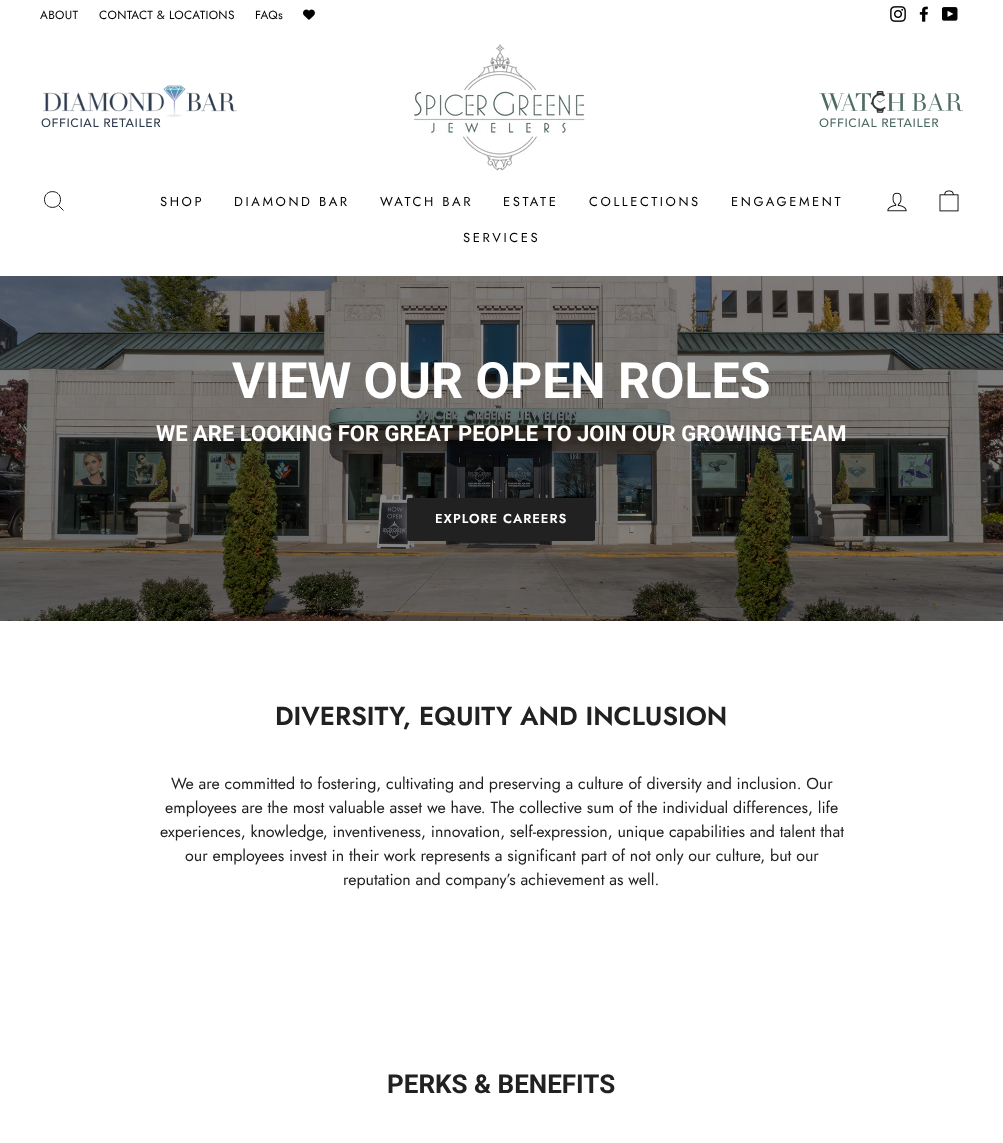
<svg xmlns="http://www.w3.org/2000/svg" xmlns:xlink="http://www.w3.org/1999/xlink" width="1003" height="1143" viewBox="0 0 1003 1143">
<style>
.cls-1{font:11.9px Jost;letter-spacing:0.3px;fill:#000000}
.cls-2{font:13px Jost;letter-spacing:2.6px;fill:#000000}
.cls-3{font:bold 50px Roboto;fill:#ffffff}
.cls-4{font:bold 22px Roboto;fill:#ffffff}
.cls-5{font:600 13px Jost;letter-spacing:1px;fill:#ffffff}
.cls-6{font:600 26px Jost;fill:#212121}
.cls-7{font:16px Jost;fill:#212121}
.cls-8{font:bold 26px Roboto;fill:#212121}
</style>
<rect width="100%" height="100%" fill="#ffffff"/>
<image xlink:href="image0.png" x="303" y="9" width="12" height="11"/>
<image xlink:href="image1.png" x="890" y="6" width="16" height="16"/>
<image xlink:href="image2.png" x="919" y="6" width="9" height="16"/>
<image xlink:href="image3.png" x="942" y="7" width="16" height="14"/>
<image xlink:href="image4.png" x="41" y="85" width="196" height="42"/>
<image xlink:href="image5.png" x="414" y="44" width="172" height="127"/>
<image xlink:href="image6.png" x="819" y="91" width="144" height="36"/>
<path fill="none" stroke="#000000" stroke-width="0.9" d="M60.5 199.5C60.5 210 44.5 210 44.5 199.5C44.5 189 60.5 189 60.5 199.5ZM63.5 210.5L58.5 205.5"/>
<image xlink:href="image7.png" x="887" y="192" width="20" height="20"/>
<image xlink:href="image8.png" x="939" y="190" width="20" height="22"/>
<image xlink:href="image9.png" x="0" y="276" width="1003" height="345"/>
<rect fill="#212121" x="407" y="498" width="188" height="43" rx="2"/>
<text class="cls-1" x="40" y="19">ABOUT</text>
<text class="cls-1" x="99" y="19">CONTACT &amp; LOCATIONS</text>
<text class="cls-1" x="255" y="19">FAQs</text>
<text class="cls-2" x="160" y="206">SHOP</text>
<text class="cls-2" x="234" y="206">DIAMOND BAR</text>
<text class="cls-2" x="380" y="206">WATCH BAR</text>
<text class="cls-2" x="503" y="206">ESTATE</text>
<text class="cls-2" x="589" y="206">COLLECTIONS</text>
<text class="cls-2" x="731" y="206">ENGAGEMENT</text>
<text class="cls-2" x="463" y="242">SERVICES</text>
<text class="cls-3" x="232" y="398">VIEW OUR OPEN ROLES</text>
<text class="cls-4" x="156" y="441">WE ARE LOOKING FOR GREAT PEOPLE TO JOIN OUR GROWING TEAM</text>
<text class="cls-5" x="435" y="523">EXPLORE CAREERS</text>
<text class="cls-6" x="275" y="725">DIVERSITY, EQUITY AND INCLUSION</text>
<text class="cls-7" x="171" y="789">We are committed to fostering, cultivating and preserving a culture of diversity and inclusion. Our</text>
<text class="cls-7" x="165" y="813">employees are the most valuable asset we have. The collective sum of the individual differences, life</text>
<text class="cls-7" x="160" y="837">experiences, knowledge, inventiveness, innovation, self-expression, unique capabilities and talent that</text>
<text class="cls-7" x="185" y="861">our employees invest in their work represents a significant part of not only our culture, but our</text>
<text class="cls-7" x="343" y="885">reputation and company’s achievement as well.</text>
<text class="cls-8" x="387" y="1093">PERKS &amp; BENEFITS</text>
</svg>
